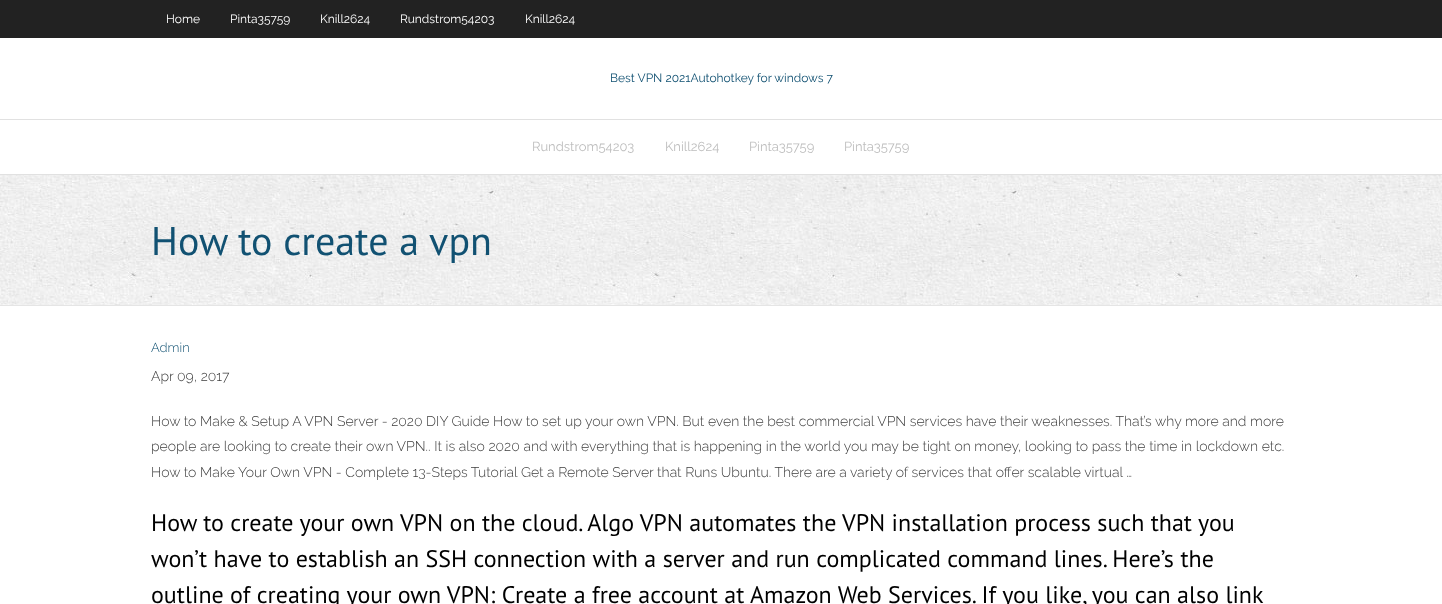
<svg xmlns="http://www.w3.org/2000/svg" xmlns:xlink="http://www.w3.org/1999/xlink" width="1442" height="604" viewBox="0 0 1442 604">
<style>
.cls-1{font:12px Raleway;fill:#ffffff}
.cls-2{font:12px Raleway;fill:#115172}
.cls-3{font:13px Raleway;fill:#bebebe}
.cls-4{font:40px PT Sans;fill:#115172}
.cls-5{font:300 13px Raleway;fill:#115172}
.cls-6{font:300 14px Raleway;fill:#3d3d3d}
.cls-7{font:24px PT Sans;fill:#000000}
</style>
<rect width="100%" height="100%" fill="#ffffff"/>
<rect fill="#222222" x="0" y="0" width="1442" height="38"/>
<rect fill="#e1e1e1" x="0" y="119" width="1442" height="1"/>
<rect fill="#e1e1e1" x="0" y="174" width="1442" height="1"/>
<image xlink:href="image0.png" x="0" y="175" width="1442" height="130"/>
<rect fill="#e5e5e5" x="0" y="305" width="1442" height="1"/>
<text class="cls-1" x="166" y="23">Home</text>
<text class="cls-1" x="230" y="23">Pinta35759</text>
<text class="cls-1" x="320" y="23">Knill2624</text>
<text class="cls-1" x="400" y="23">Rundstrom54203</text>
<text class="cls-1" x="525" y="23">Knill2624</text>
<text class="cls-2" x="610" y="82">Best VPN 2021Autohotkey for windows 7</text>
<text class="cls-3" x="532" y="151">Rundstrom54203</text>
<text class="cls-3" x="665" y="151">Knill2624</text>
<text class="cls-3" x="749" y="151">Pinta35759</text>
<text class="cls-3" x="844" y="151">Pinta35759</text>
<text class="cls-4" x="151" y="255">How to create a vpn</text>
<text class="cls-5" x="151" y="352">Admin</text>
<text class="cls-6" x="151" y="381">Apr 09, 2017</text>
<text class="cls-6"><tspan x="151" y="426">How to Make &amp; Setup A VPN Server - 2020 DIY Guide How to set up your own VPN. But even the best commercial VPN services have their weaknesses. That’s why more and more</tspan><tspan x="151" y="451">people are looking to create their own VPN.. It is also 2020 and with everything that is happening in the world you may be tight on money, looking to pass the time in lockdown etc.</tspan><tspan x="151" y="477">How to Make Your Own VPN - Complete 13-Steps Tutorial Get a Remote Server that Runs Ubuntu. There are a variety of services that offer scalable virtual …</tspan></text>
<text class="cls-7"><tspan x="151" y="531">How to create your own VPN on the cloud. Algo VPN automates the VPN installation process such that you</tspan><tspan x="151" y="567">won’t have to establish an SSH connection with a server and run complicated command lines. Here’s the</tspan><tspan x="151" y="603">outline of creating your own VPN: Create a free account at Amazon Web Services. If you like, you can also link</tspan></text>
</svg>
